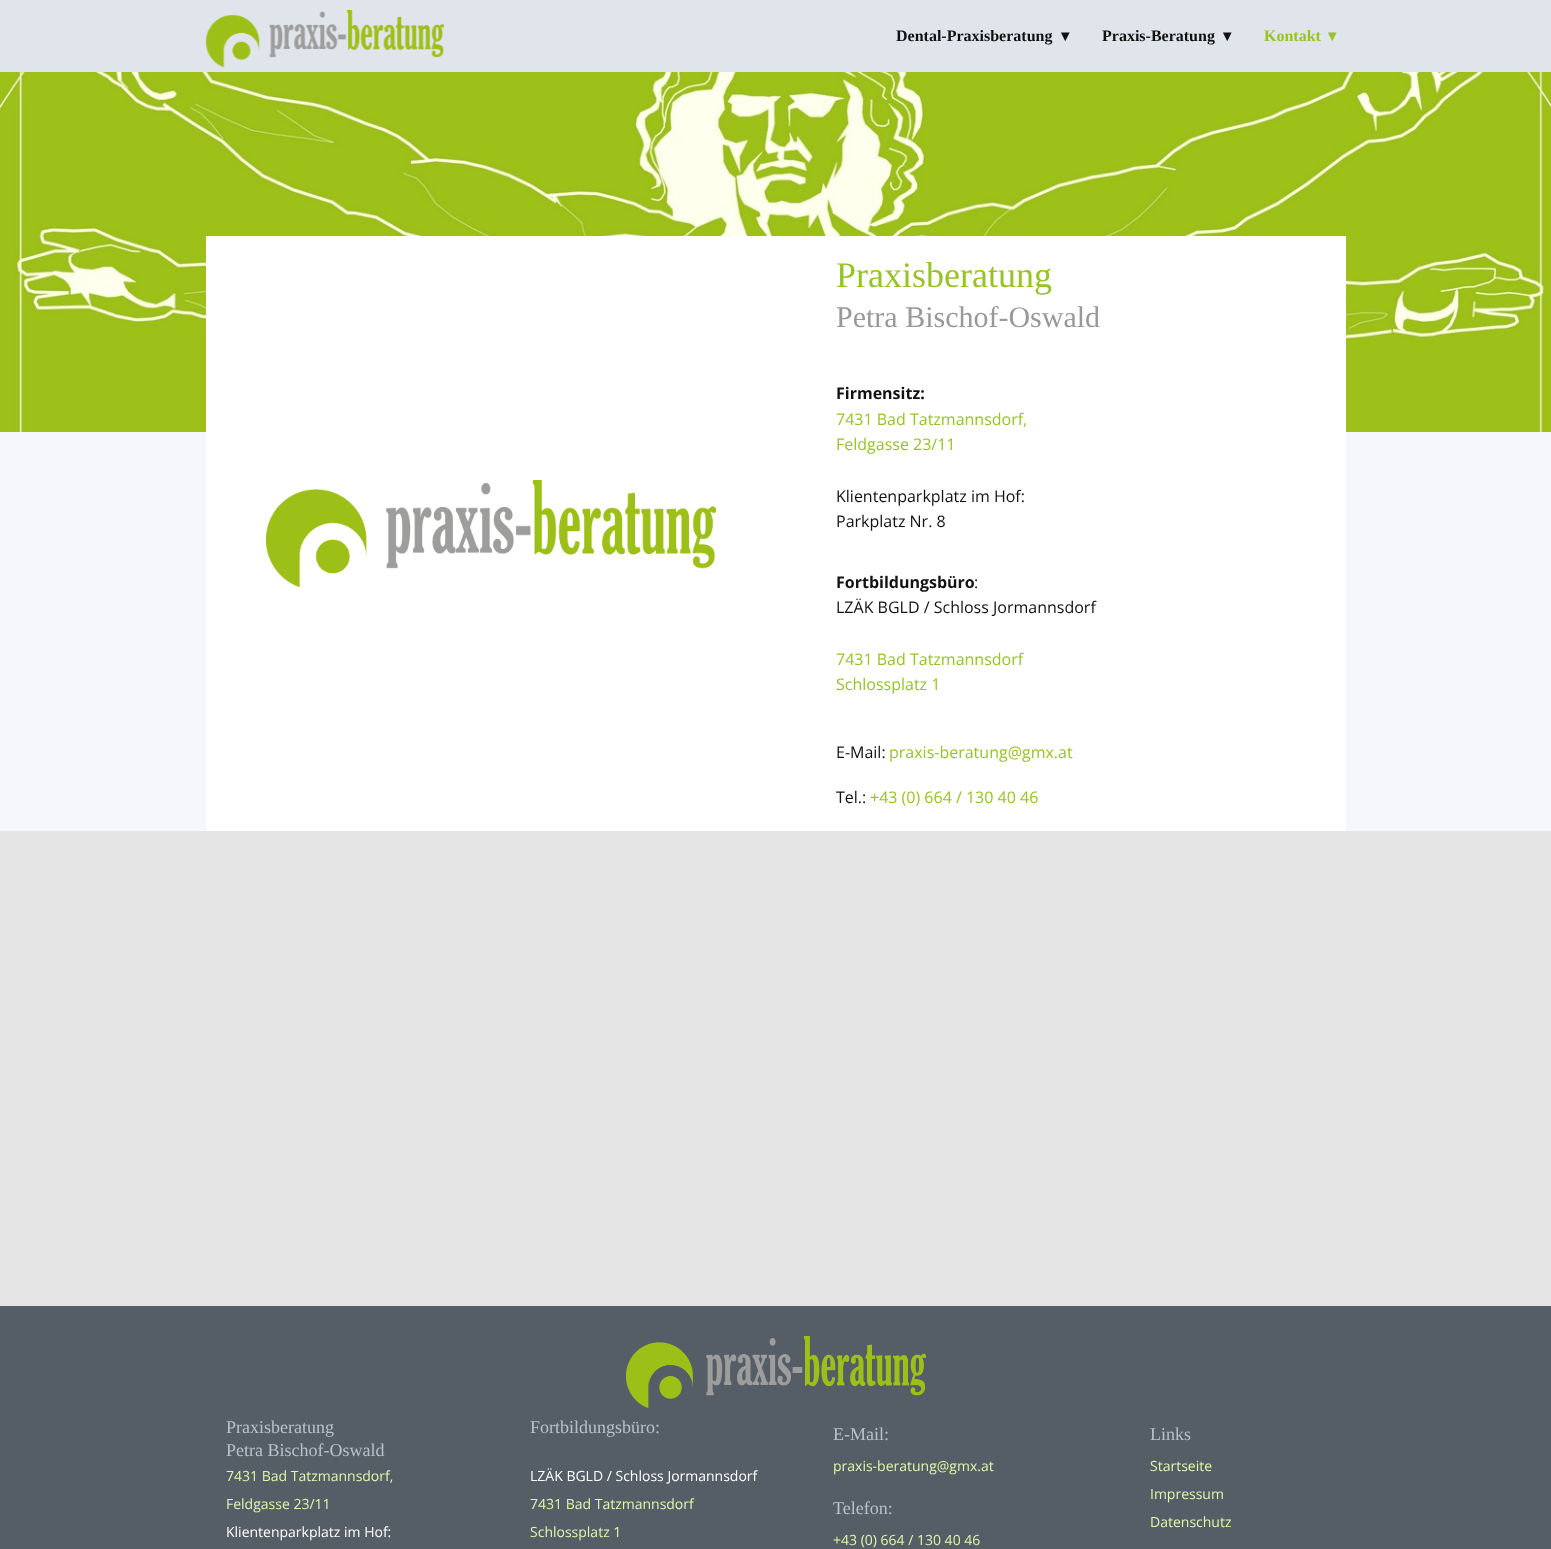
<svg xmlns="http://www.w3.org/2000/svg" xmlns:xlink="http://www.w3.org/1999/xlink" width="1551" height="1549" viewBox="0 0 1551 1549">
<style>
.cls-1{font:bold 16px Liberation Serif;fill:#111111}
.cls-2{font:bold 16px DejaVu Sans;fill:#111111}
.cls-3{font:bold 16px Liberation Serif;fill:#97c326}
.cls-4{font:bold 16px DejaVu Sans;fill:#97c326}
.cls-5{font:36px Liberation Serif;fill:#97c326}
.cls-6{font:30px Liberation Serif;fill:#999999}
.cls-7{font:bold 16px Open Sans;fill:#111111}
.cls-8{font:16px Open Sans;fill:#97c326}
.cls-9{font:16px Open Sans;fill:#111111}
.cls-10{font:18px Liberation Serif;fill:#b8c1cc}
.cls-11{font:14px Open Sans;fill:#e1f6ac}
.cls-12{font:14px Open Sans;fill:#ffffff}
</style>
<rect width="100%" height="100%" fill="#f5f7fa"/>
<rect fill="#e0e5eb" x="0" y="0" width="1551" height="72"/>
<image xlink:href="image0.png" x="205" y="10" width="239" height="58"/>
<image xlink:href="image1.png" x="0" y="72" width="1551" height="360"/>
<rect fill="#ffffff" x="206" y="236" width="1140" height="595"/>
<image xlink:href="image2.png" x="266" y="480" width="450" height="107"/>
<rect fill="#e5e5e5" x="0" y="831" width="1551" height="475"/>
<rect fill="#555d66" x="0" y="1306" width="1551" height="243"/>
<image xlink:href="image3.png" x="626" y="1336" width="300" height="72"/>
<text class="cls-1" x="896" y="41">Dental-Praxisberatung</text>
<text class="cls-2" x="1061" y="41">▾</text>
<text class="cls-1" x="1102" y="41">Praxis-Beratung</text>
<text class="cls-2" x="1223" y="41">▾</text>
<text class="cls-3" x="1264" y="41">Kontakt</text>
<text class="cls-4" x="1328" y="41">▾</text>
<text class="cls-5" x="836" y="287">Praxisberatung</text>
<text class="cls-6" x="836" y="327">Petra Bischof-Oswald</text>
<text class="cls-7" x="836" y="399">Firmensitz:</text>
<text class="cls-8"><tspan x="836" y="425">7431 Bad Tatzmannsdorf,</tspan><tspan x="836" y="450">Feldgasse 23/11</tspan></text>
<text class="cls-9"><tspan x="836" y="502">Klientenparkplatz im Hof:</tspan><tspan x="836" y="527">Parkplatz Nr. 8</tspan></text>
<text class="cls-7" x="836" y="588">Fortbildungsbüro</text>
<text class="cls-9" x="974" y="588">:</text>
<text class="cls-9" x="836" y="613">LZÄK BGLD / Schloss Jormannsdorf</text>
<text class="cls-8"><tspan x="836" y="665">7431 Bad Tatzmannsdorf</tspan><tspan x="836" y="690">Schlossplatz 1</tspan></text>
<text class="cls-9" x="836" y="758">E-Mail:</text>
<text class="cls-8" x="889" y="758">praxis-beratung@gmx.at</text>
<text class="cls-9" x="836" y="803">Tel.:</text>
<text class="cls-8" x="870" y="803">+43 (0) 664 / 130 40 46</text>
<text class="cls-10"><tspan x="226" y="1433">Praxisberatung</tspan><tspan x="226" y="1456">Petra Bischof-Oswald</tspan></text>
<text class="cls-11" x="226" y="1481">7431 Bad Tatzmannsdorf,</text>
<text class="cls-11" x="226" y="1509">Feldgasse 23/11</text>
<text class="cls-12" x="226" y="1537">Klientenparkplatz im Hof:</text>
<text class="cls-10" x="530" y="1433">Fortbildungsbüro:</text>
<text class="cls-12" x="530" y="1481">LZÄK BGLD / Schloss Jormannsdorf</text>
<text class="cls-11" x="530" y="1509">7431 Bad Tatzmannsdorf</text>
<text class="cls-11" x="530" y="1537">Schlossplatz 1</text>
<text class="cls-10" x="833" y="1440">E-Mail:</text>
<text class="cls-11" x="833" y="1471">praxis-beratung@gmx.at</text>
<text class="cls-10" x="833" y="1514">Telefon:</text>
<text class="cls-11" x="833" y="1545">+43 (0) 664 / 130 40 46</text>
<text class="cls-10" x="1150" y="1440">Links</text>
<text class="cls-11" x="1150" y="1471">Startseite</text>
<text class="cls-11" x="1150" y="1499">Impressum</text>
<text class="cls-11" x="1150" y="1527">Datenschutz</text>
</svg>
